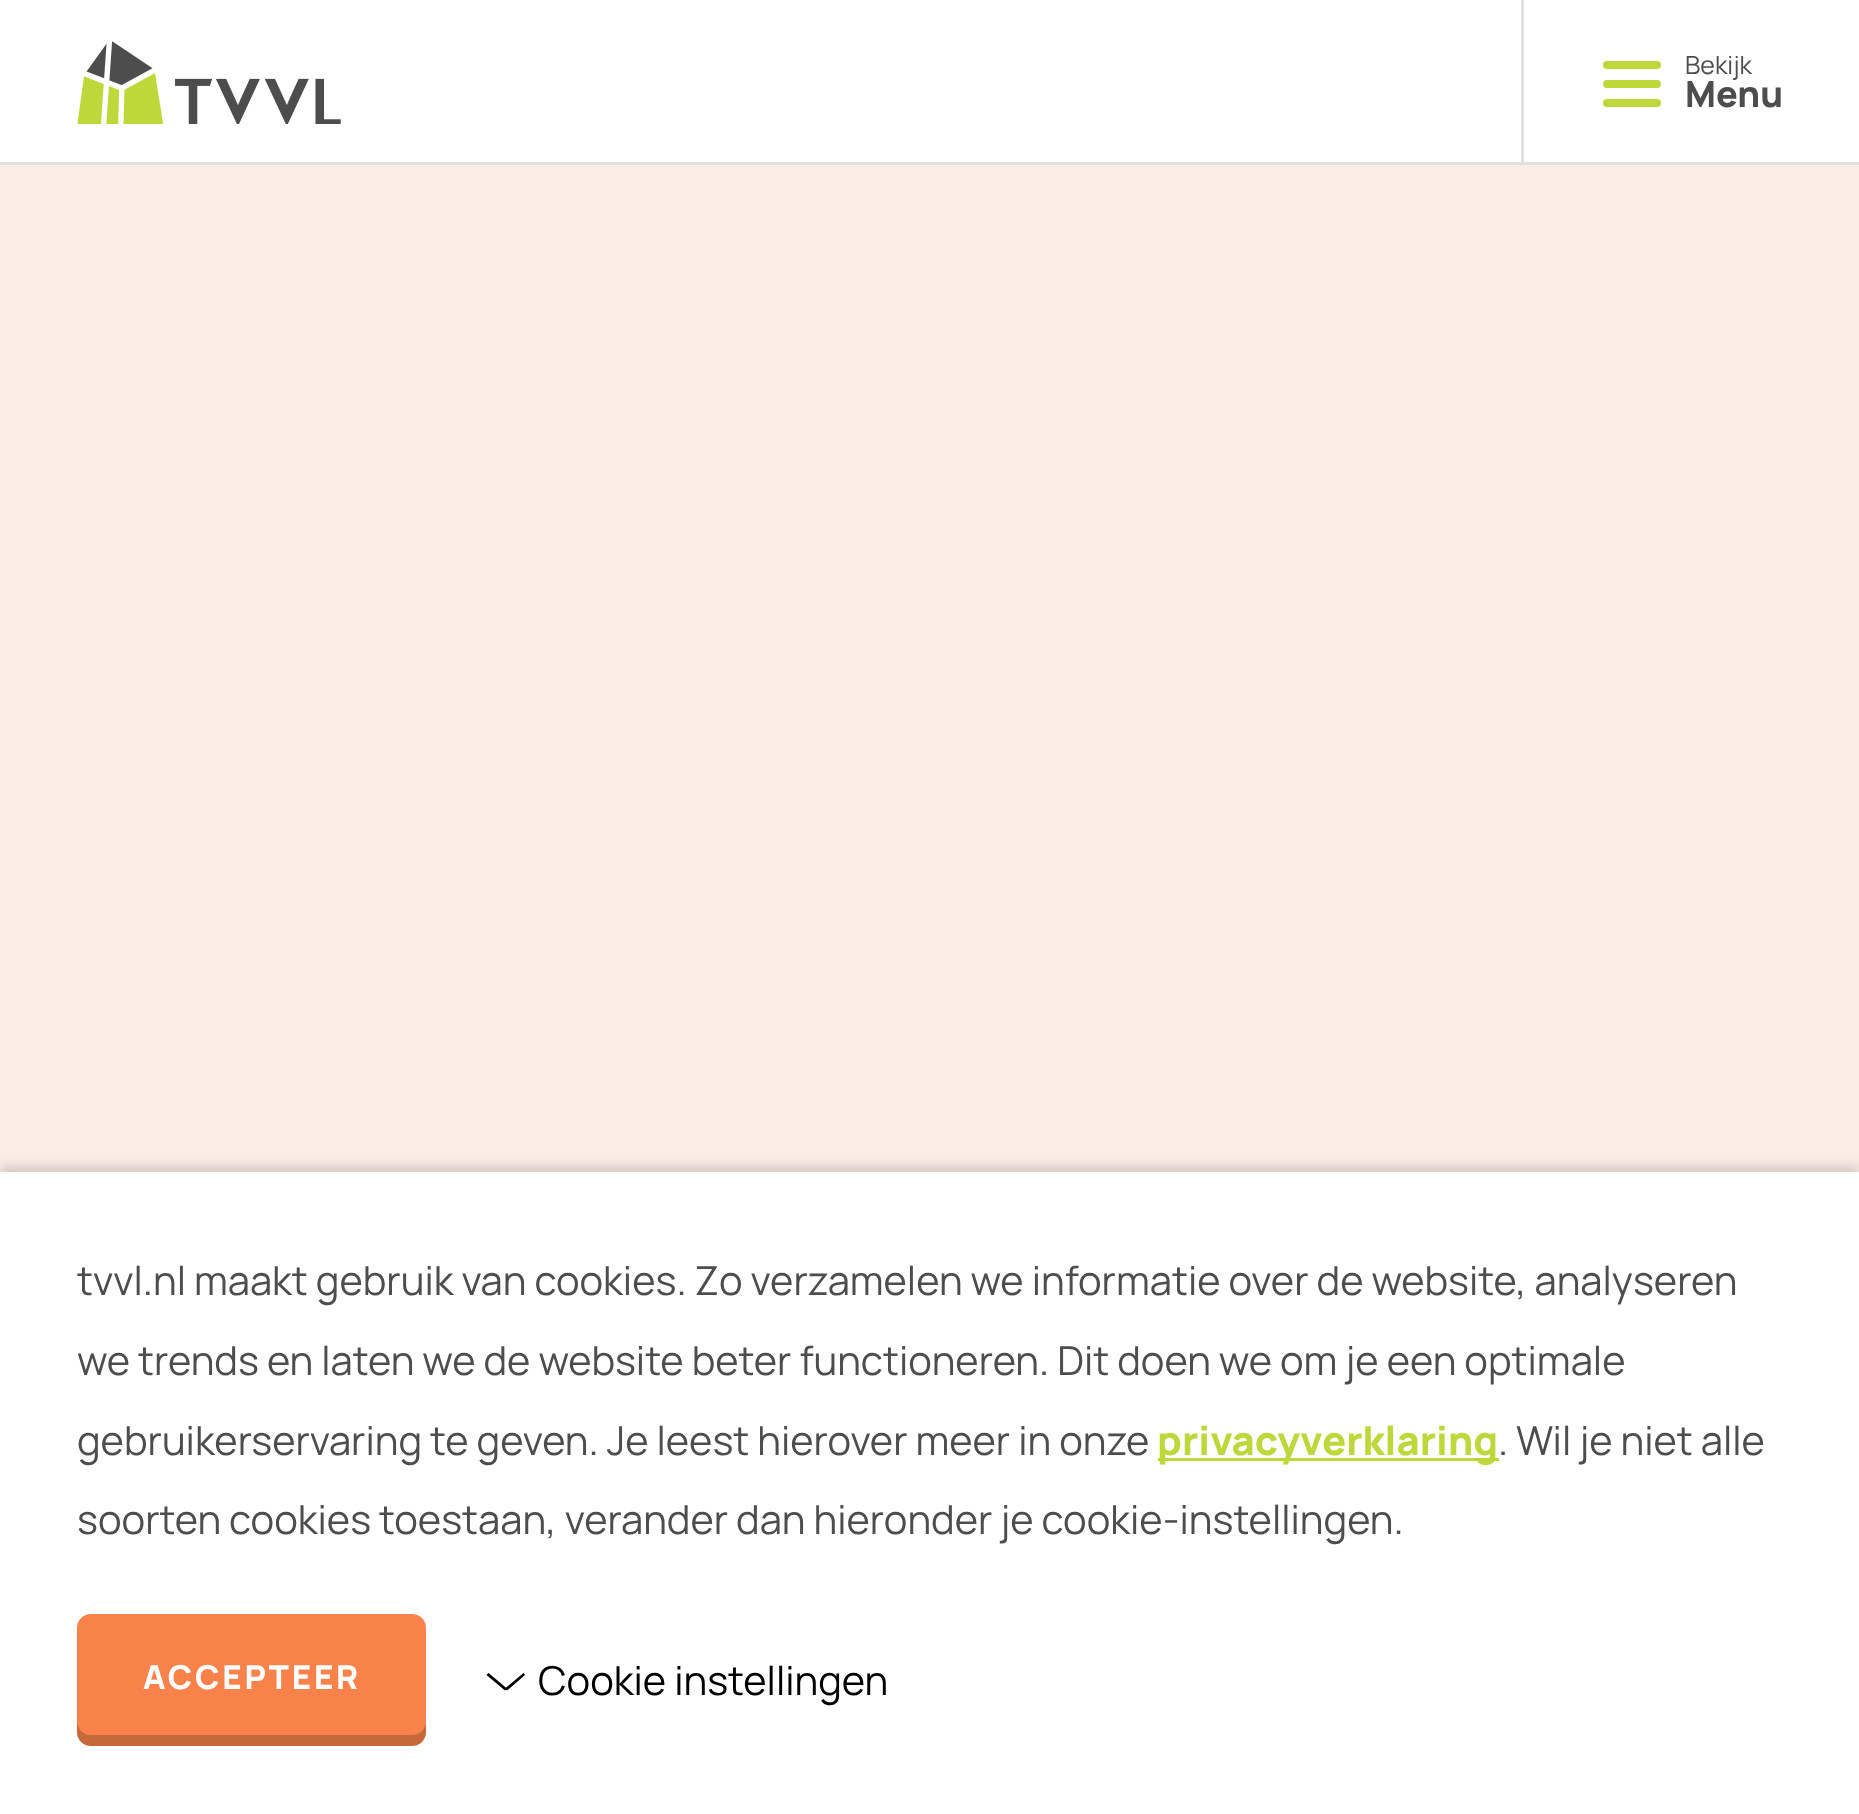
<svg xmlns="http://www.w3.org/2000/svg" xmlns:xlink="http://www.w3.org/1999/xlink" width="1859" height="1814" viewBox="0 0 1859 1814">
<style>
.cls-1{font:25px Manrope;fill:#4d4d4d}
.cls-2{font:800 36px Manrope;fill:#4d4d4d}
.cls-3{font:39.9px Manrope;fill:#4d4d4d}
.cls-4{font:800 39.9px Manrope;fill:#bed73b}
.cls-5{font:800 33px Manrope;letter-spacing:2.75px;fill:#ffffff}
.cls-6{font:39.9px Manrope;fill:#000000}
</style>
<rect width="100%" height="100%" fill="#ffffff"/>
<image xlink:href="image0.png" x="77" y="41" width="264" height="83"/>
<rect fill="#e1e1e1" x="0" y="162" width="1859" height="3"/>
<rect fill="#e1e1e1" x="1521" y="0" width="3" height="165"/>
<rect fill="#bed73b" x="1603" y="61" width="58" height="8" rx="4"/>
<rect fill="#bed73b" x="1603" y="80" width="58" height="8" rx="4"/>
<rect fill="#bed73b" x="1603" y="99" width="58" height="8" rx="4"/>
<rect fill="#fbede6" x="0" y="165" width="1859" height="1007"/>
<rect fill="#000000" fill-opacity="0.15" filter="blur(5.5px)" x="0" y="1166" width="1859" height="644"/>
<rect fill="#ffffff" x="0" y="1172" width="1859" height="642"/>
<rect fill="#bed73b" x="1158" y="1458" width="341" height="3"/>
<rect fill="#f9824a" x="77" y="1614" width="349" height="132" rx="14"/>
<path fill="#000000" fill-opacity="0.2" d="M77 1721V1732C77 1740 83 1746 91 1746H412C420 1746 426 1740 426 1732V1721C426 1729 420 1735 412 1735H91C83 1735 77 1729 77 1721Z"/>
<path fill="#000000" d="M488.5 1673L507 1688.5L505 1690.5L486.5 1675Z"/>
<path fill="#000000" d="M505 1688.5L523.5 1673L525 1675L507 1690.5Z"/>
<text class="cls-1" x="1685" y="74">Bekijk</text>
<text class="cls-2" x="1685" y="107">Menu</text>
<text class="cls-3" x="77" y="1295">tvvl.nl maakt gebruik van cookies. Zo verzamelen we informatie over de website, analyseren</text>
<text class="cls-3" x="77" y="1375">we trends en laten we de website beter functioneren. Dit doen we om je een optimale</text>
<text class="cls-3" x="77" y="1455">gebruikerservaring te geven. Je leest hierover meer in onze</text>
<text class="cls-4" x="1157" y="1455">privacyverklaring</text>
<text class="cls-3" x="1498" y="1455">. Wil je niet alle</text>
<text class="cls-3" x="77" y="1534">soorten cookies toestaan, verander dan hieronder je cookie-instellingen.</text>
<text class="cls-5" x="143" y="1689">ACCEPTEER</text>
<text class="cls-6" x="538" y="1695">Cookie instellingen</text>
</svg>
